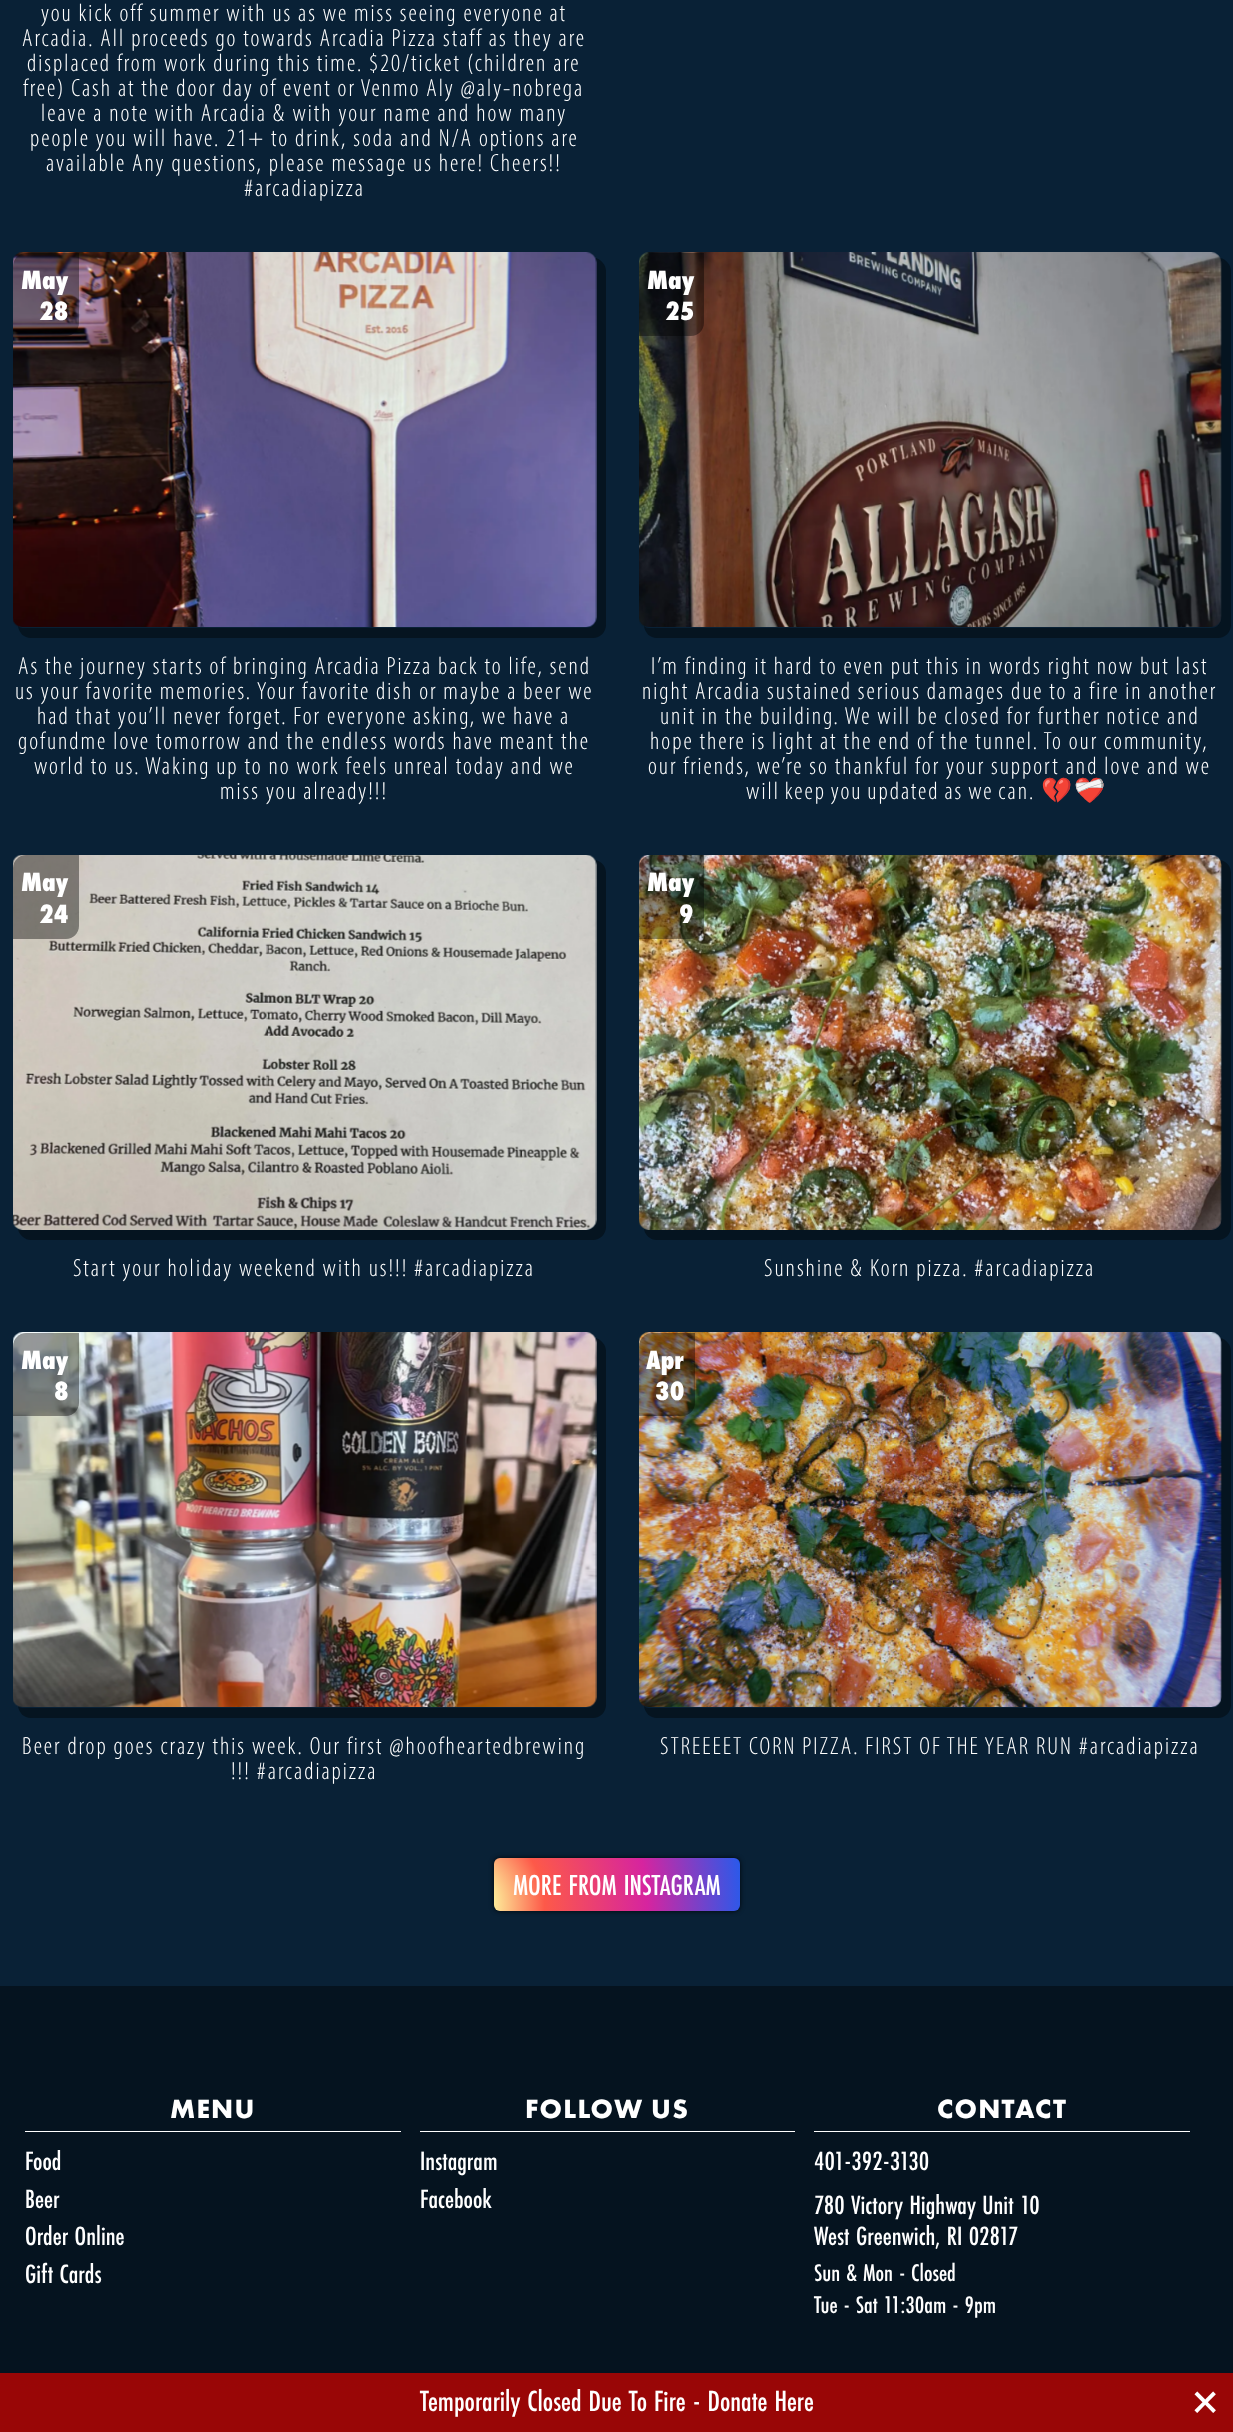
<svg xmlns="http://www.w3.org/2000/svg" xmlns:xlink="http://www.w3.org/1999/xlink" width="1233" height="2432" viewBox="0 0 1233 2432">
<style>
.cls-1{font:300 25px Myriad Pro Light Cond;letter-spacing:2px;fill:#ffffff}
.cls-2{font:800 27.5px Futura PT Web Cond;fill:#ffffff}
.cls-3{font:25px Noto Color Emoji;letter-spacing:2px;fill:#ffffff}
.cls-4{font:500 30px Futura PT Web Cond;fill:#ffffff}
.cls-5{font:bold 27.5px Futura PT;letter-spacing:1.25px;fill:#ffffff}
.cls-6{font:500 27.5px Futura PT Web Cond;fill:#ffffff}
.cls-7{font:500 25px Futura PT Web Cond;fill:#ffffff}
.cls-8{font:500 30.25px Futura PT Web Cond;fill:#ffffff}
.cls-9{font:69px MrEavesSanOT;fill:#ffffff}
</style>
<defs>
<radialGradient id="g1" gradientUnits="userSpaceOnUse" cx="459" cy="1905" r="285"><stop offset="0" stop-color="#fdf497"/><stop offset="0.11" stop-color="#fdf59e"/><stop offset="0.3" stop-color="#fd5949"/><stop offset="0.66" stop-color="#d6249f"/><stop offset="1" stop-color="#285aeb"/></radialGradient>
</defs>
<rect width="100%" height="100%" fill="#092136"/>
<path fill="#051420" d="M18 626C19 633 24 638 31 638H593C600 638 606 632 606 625V271C606 265 601 259 595 258L596 262V618C596 623 592 628 586 628H22C21 628 19 627 18 626Z"/>
<image xlink:href="image0.png" x="13" y="252" width="584" height="375"/>
<path fill="#000000" fill-opacity="0.4" d="M26 253H79V323C79 330 73 336 66 336H13V266C13 259 19 253 26 253Z"/>
<path fill="#051420" d="M644 626C645 633 650 638 657 638H1218C1225 638 1231 632 1231 625V271C1231 265 1226 259 1220 258L1221 262V618C1221 623 1217 628 1211 628H649C647 628 645 627 644 626Z"/>
<image xlink:href="image1.png" x="639" y="252" width="583" height="375"/>
<path fill="#000000" fill-opacity="0.4" d="M652 253H704V323C704 330 698 336 691 336H639V266C639 259 645 253 652 253Z"/>
<path fill="#051420" d="M18 1229C19 1235 25 1240 31 1240H593C600 1240 606 1234 606 1227V873C606 866 601 861 595 860C596 862 596 863 596 865V1220C596 1226 592 1230 586 1230H22Z"/>
<image xlink:href="image2.png" x="13" y="855" width="584" height="375"/>
<path fill="#000000" fill-opacity="0.4" d="M26 855H79V926C79 933 73 939 66 939H13V868C13 861 19 855 26 855Z"/>
<path fill="#051420" d="M644 1229C645 1235 650 1240 657 1240H1218C1225 1240 1231 1234 1231 1227V873C1231 866 1226 861 1220 860C1221 862 1221 863 1221 865V1220C1221 1226 1217 1230 1211 1230H649C647 1230 646 1230 644 1229Z"/>
<image xlink:href="image3.png" x="639" y="855" width="583" height="375"/>
<path fill="#000000" fill-opacity="0.4" d="M652 855H704V926C704 933 698 939 691 939H639V868C639 861 645 855 652 855Z"/>
<path fill="#051420" d="M18 1706C19 1713 24 1718 31 1718H593C600 1718 606 1712 606 1705V1351C606 1345 601 1339 595 1338L596 1342V1698C596 1703 592 1708 586 1708H22C21 1708 19 1707 18 1706Z"/>
<image xlink:href="image4.png" x="13" y="1332" width="584" height="375"/>
<path fill="#000000" fill-opacity="0.4" d="M26 1333H79V1403C79 1410 73 1416 66 1416H13V1346C13 1339 19 1333 26 1333Z"/>
<path fill="#051420" d="M644 1706C645 1713 650 1718 657 1718H1218C1225 1718 1231 1712 1231 1705V1351C1231 1345 1226 1339 1220 1338L1221 1342V1698C1221 1703 1217 1708 1211 1708H649C647 1708 645 1707 644 1706Z"/>
<image xlink:href="image5.png" x="639" y="1332" width="583" height="375"/>
<path fill="#000000" fill-opacity="0.4" d="M652 1333H695V1403C695 1410 689 1416 682 1416H639V1346C639 1339 645 1333 652 1333Z"/>
<rect fill="#000000" fill-opacity="0.86" filter="blur(2.5px)" x="494" y="1858" width="246" height="53" rx="6"/>
<rect fill="url(#g1)" x="494" y="1858" width="246" height="53" rx="6"/>
<rect fill="#05131f" x="0" y="1986" width="1233" height="387"/>
<rect fill="#ffffff" x="25" y="2131" width="376" height="1"/>
<rect fill="#ffffff" x="420" y="2131" width="375" height="1"/>
<rect fill="#ffffff" x="814" y="2131" width="376" height="1"/>
<rect fill="#990606" x="0" y="2373" width="1233" height="59"/>
<text class="cls-1" x="41" y="21">you kick off summer with us as we miss seeing everyone at</text>
<text class="cls-1" x="22" y="46">Arcadia. All proceeds go towards Arcadia Pizza staff as they are</text>
<text class="cls-1" x="27" y="71">displaced from work during this time. $20/ticket (children are</text>
<text class="cls-1" x="23" y="96">free) Cash at the door day of event or Venmo Aly @aly-nobrega</text>
<text class="cls-1" x="41" y="121">leave a note with Arcadia &amp; with your name and how many</text>
<text class="cls-1" x="30" y="146">people you will have. 21+ to drink, soda and N/A options are</text>
<text class="cls-1" x="46" y="171">available Any questions, please message us here! Cheers!!</text>
<text class="cls-1" x="244" y="196">#arcadiapizza</text>
<text class="cls-2" x="21" y="289">May</text>
<text class="cls-2" x="39" y="320">28</text>
<text class="cls-1" x="18" y="674">As the journey starts of bringing Arcadia Pizza back to life, send</text>
<text class="cls-1" x="15" y="699">us your favorite memories. Your favorite dish or maybe a beer we</text>
<text class="cls-1" x="37" y="724">had that you’ll never forget. For everyone asking, we have a</text>
<text class="cls-1" x="18" y="749">gofundme love tomorrow and the endless words have meant the</text>
<text class="cls-1" x="34" y="774">world to us. Waking up to no work feels unreal today and we</text>
<text class="cls-1" x="220" y="799">miss you already!!!</text>
<text class="cls-2" x="647" y="289">May</text>
<text class="cls-2" x="665" y="320">25</text>
<text class="cls-1" x="651" y="674">I’m finding it hard to even put this in words right now but last</text>
<text class="cls-1" x="642" y="699">night Arcadia sustained serious damages due to a fire in another</text>
<text class="cls-1" x="660" y="724">unit in the building. We will be closed for further notice and</text>
<text class="cls-1" x="650" y="749">hope there is light at the end of the tunnel. To our community,</text>
<text class="cls-1" x="648" y="774">our friends, we’re so thankful for your support and love and we</text>
<text class="cls-1" x="746" y="799" word-spacing="-1">will keep you updated as we can.</text>
<text class="cls-3" x="1041" y="799">💔❤️‍🩹</text>
<text class="cls-2" x="21" y="891">May</text>
<text class="cls-2" x="39" y="923">24</text>
<text class="cls-1" x="73" y="1276">Start your holiday weekend with us!!! #arcadiapizza</text>
<text class="cls-2" x="647" y="891">May</text>
<text class="cls-2" x="679" y="923">9</text>
<text class="cls-1" x="764" y="1276">Sunshine &amp; Korn pizza. #arcadiapizza</text>
<text class="cls-2" x="21" y="1369">May</text>
<text class="cls-2" x="54" y="1400">8</text>
<text class="cls-1" x="22" y="1754">Beer drop goes crazy this week. Our first @hoofheartedbrewing</text>
<text class="cls-1" x="231" y="1779">!!! #arcadiapizza</text>
<text class="cls-2" x="646" y="1369">Apr</text>
<text class="cls-2" x="655" y="1400">30</text>
<text class="cls-1" x="660" y="1754">STREEEET CORN PIZZA. FIRST OF THE YEAR RUN #arcadiapizza</text>
<text class="cls-4" x="513" y="1895">MORE FROM INSTAGRAM</text>
<text class="cls-5" x="170" y="2118">MENU</text>
<text class="cls-6"><tspan x="25" y="2170">Food</tspan><tspan x="25" y="2208">Beer</tspan><tspan x="25" y="2245">Order Online</tspan><tspan x="25" y="2283">Gift Cards</tspan></text>
<text class="cls-5" x="525" y="2118">FOLLOW US</text>
<text class="cls-6"><tspan x="420" y="2170">Instagram</tspan><tspan x="420" y="2208">Facebook</tspan></text>
<text class="cls-5" x="937" y="2118">CONTACT</text>
<text class="cls-6"><tspan x="814" y="2170">401-392-3130</tspan><tspan x="814" y="2214">780 Victory Highway Unit 10</tspan><tspan x="814" y="2245">West Greenwich, RI 02817</tspan></text>
<text class="cls-7"><tspan x="814" y="2281">Sun &amp; Mon - Closed</tspan><tspan x="814" y="2313">Tue - Sat 11:30am - 9pm</tspan></text>
<text class="cls-8" x="420" y="2411">Temporarily Closed Due To Fire - Donate Here</text>
<text class="cls-9" x="1190" y="2418">×</text>
</svg>
